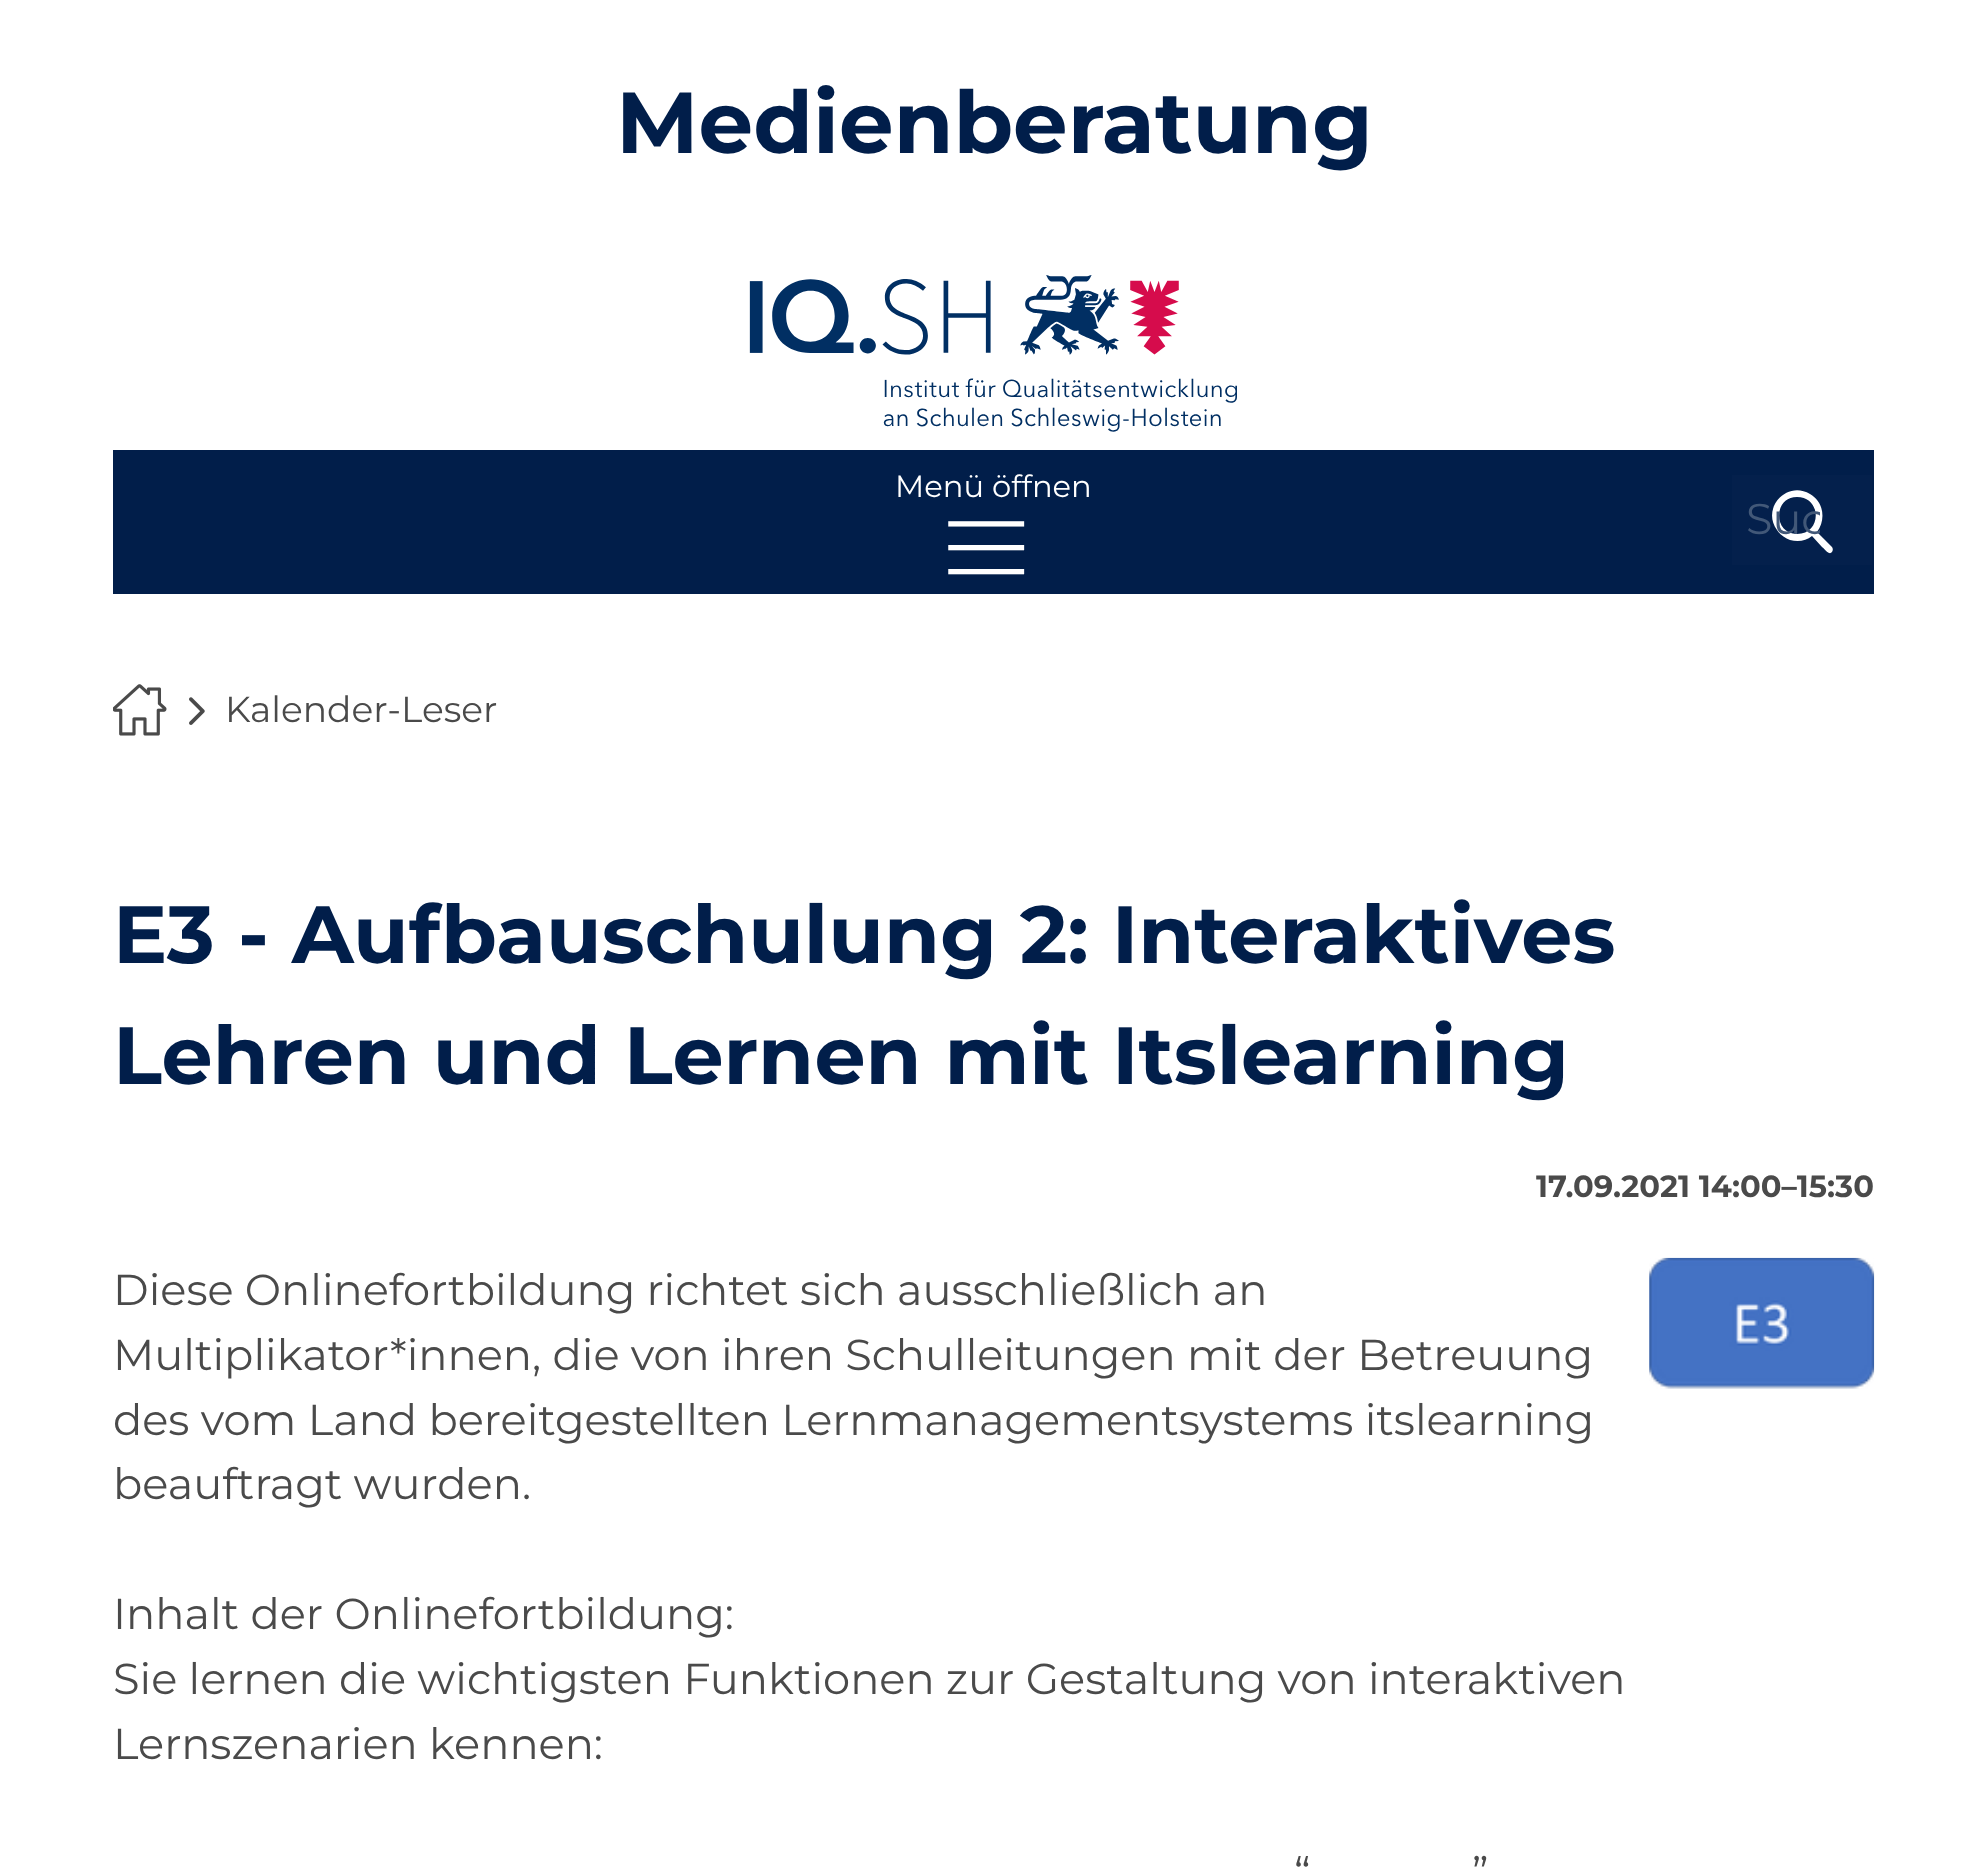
<svg xmlns="http://www.w3.org/2000/svg" xmlns:xlink="http://www.w3.org/1999/xlink" width="1985" height="1875" viewBox="0 0 1985 1875">
<style>
.cls-1{font:bold 86.5px Montserrat;fill:#011e4a}
.cls-2{font:30.6px Montserrat;fill:#ffffff}
.cls-3{font:81px Montserrat;fill:#ffffff}
.cls-4{font:43px Montserrat;fill:#425878}
.cls-5{font:36px Montserrat;fill:#4a4a4a}
.cls-6{font:bold 81px Montserrat;fill:#011e4a}
.cls-7{font:bold 30.6px Montserrat;fill:#4a4a4a}
.cls-8{font:43.2px Montserrat;fill:#4a4a4a}
</style>
<defs>
<clipPath id="clip1"><rect x="1746" y="493" width="74" height="52"/></clipPath>
</defs>
<rect width="100%" height="100%" fill="#ffffff"/>
<image xlink:href="image0.png" x="749" y="275" width="488" height="157"/>
<rect fill="#011e4a" x="113" y="450" width="1761" height="144"/>
<rect fill="#04204c" x="1732" y="475" width="140" height="90"/>
<path fill="#ffffff" d="M1832 547L1817 532C1826 520 1824 502 1810 494C1787 480 1761 508 1777 530C1780 535 1785 538 1790 540C1798 542 1806 541 1812 536L1822 547C1824 548 1826 552 1829 553C1832 554 1834 550 1832 547ZM1797 497C1822 497 1822 534 1797 534C1773 534 1773 497 1797 497Z"/>
<image xlink:href="image1.png" x="113" y="684" width="54" height="52"/>
<image xlink:href="image2.png" x="189" y="697" width="16" height="28"/>
<image xlink:href="image3.png" x="1649" y="1257" width="226" height="132"/>
<text class="cls-1" x="616" y="153">Medienberatung</text>
<text class="cls-2" x="895" y="497">Menü öffnen</text>
<text class="cls-3" x="964" y="512" transform="rotate(90 964 512)">|||</text>
<g clip-path="url(#clip1)">
<text class="cls-4" x="1746" y="534">Suc</text>
</g>
<text class="cls-5" x="225" y="722">Kalender-Leser</text>
<text class="cls-6"><tspan x="113" y="963">E3 - Aufbauschulung 2: Interaktives</tspan><tspan x="113" y="1084">Lehren und Lernen mit Itslearning</tspan></text>
<text class="cls-7" x="1536" y="1197">17.09.2021 14:00–15:30</text>
<text class="cls-8"><tspan x="113" y="1305">Diese Onlinefortbildung richtet sich ausschließlich an</tspan><tspan x="113" y="1370">Multiplikator*innen, die von ihren Schulleitungen mit der Betreuung</tspan><tspan x="113" y="1435">des vom Land bereitgestellten Lernmanagementsystems itslearning</tspan><tspan x="113" y="1499">beauftragt wurden.</tspan></text>
<text class="cls-8"><tspan x="113" y="1629">Inhalt der Onlinefortbildung:</tspan><tspan x="113" y="1694">Sie lernen die wichtigsten Funktionen zur Gestaltung von interaktiven</tspan><tspan x="113" y="1759">Lernszenarien kennen:</tspan></text>
<text class="cls-8" x="1294" y="1888">“</text>
<text class="cls-8" x="1472" y="1888">”</text>
</svg>
